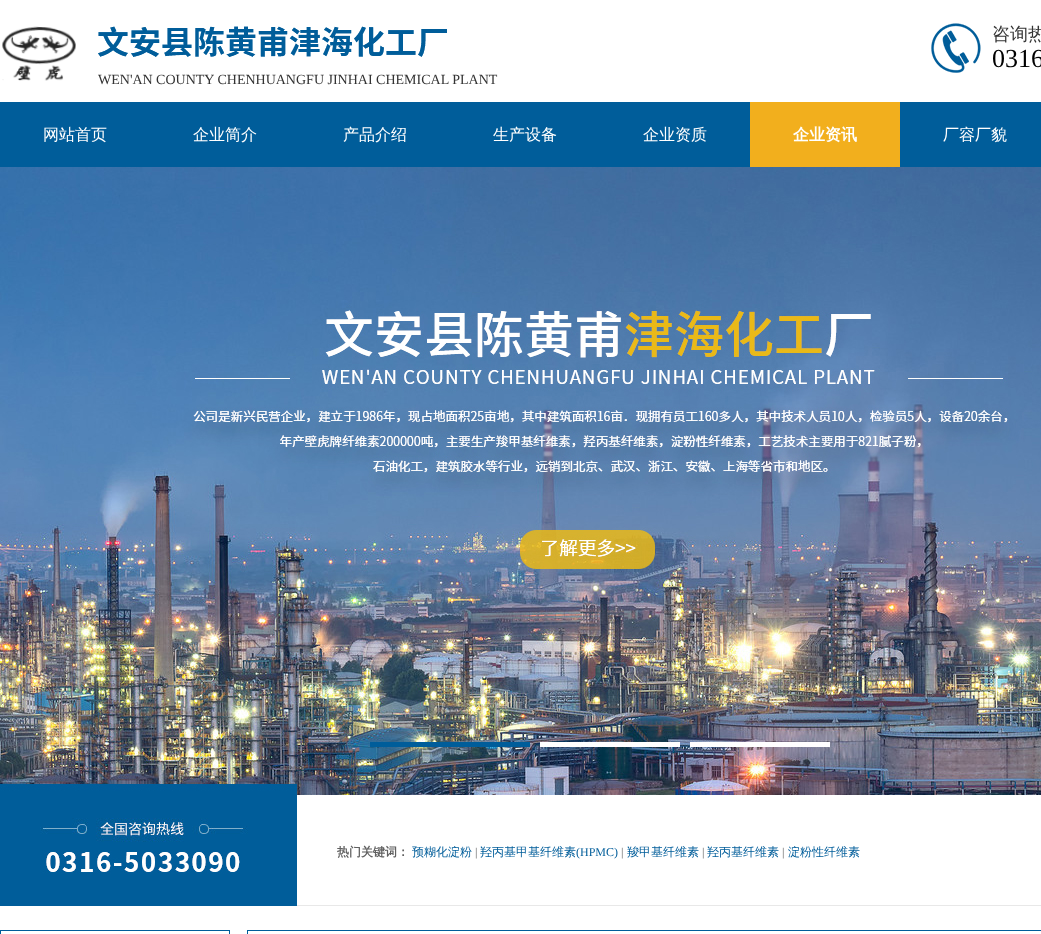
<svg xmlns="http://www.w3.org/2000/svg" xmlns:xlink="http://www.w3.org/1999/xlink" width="1041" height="934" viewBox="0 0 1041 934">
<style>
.cls-1{font:500 18px WenQuanYi Zen Hei;fill:#333333}
.cls-2{font:26px Liberation Serif;fill:#000000}
.cls-3{font:14px Liberation Serif;fill:#333333}
.cls-4{font:500 16px WenQuanYi Zen Hei;fill:#ffffff}
.cls-5{font:bold 16px WenQuanYi Zen Hei;fill:#ffffff}
.cls-6{font:bold 12px WenQuanYi Zen Hei;fill:#606060}
.cls-7{font:500 12px WenQuanYi Zen Hei;fill:#005d9a}
.cls-8{font:12px Liberation Serif;fill:#606060}
.cls-9{font:12px Liberation Serif;fill:#005d9a}
</style>
<rect width="100%" height="100%" fill="#ffffff"/>
<image xlink:href="image0.png" x="931" y="23" width="50" height="50"/>
<image xlink:href="image1.png" x="2" y="26" width="74" height="55"/>
<image xlink:href="image2.png" x="98" y="26" width="349" height="31"/>
<rect fill="#005d9a" x="0" y="102" width="1041" height="65"/>
<rect fill="#f2af1d" x="750" y="102" width="150" height="65"/>
<image xlink:href="image3.png" x="0" y="167" width="1041" height="628"/>
<rect fill="#005d9a" x="370" y="742" width="160" height="5"/>
<rect fill="#ffffff" x="540" y="742" width="140" height="5"/>
<rect fill="#ffffff" x="690" y="742" width="140" height="5"/>
<rect fill="#e8e8e8" x="297" y="905" width="744" height="1"/>
<image xlink:href="image4.png" x="0" y="795" width="297" height="111"/>
<rect fill="#005d9a" x="0" y="930" width="230" height="1"/>
<rect fill="#005d9a" x="229" y="930" width="1" height="4"/>
<rect fill="#005d9a" x="0" y="930" width="1" height="4"/>
<rect fill="none" stroke="#005d9a" x="247.5" y="930.5" width="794" height="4"/>
<text class="cls-1" x="992" y="40">咨询热</text>
<text class="cls-2" x="992" y="67">0316</text>
<text class="cls-3" x="98" y="84">WEN'AN COUNTY CHENHUANGFU JINHAI CHEMICAL PLANT</text>
<text class="cls-4" x="43" y="140">网站首页</text>
<text class="cls-4" x="193" y="140">企业简介</text>
<text class="cls-4" x="343" y="140">产品介绍</text>
<text class="cls-4" x="493" y="140">生产设备</text>
<text class="cls-4" x="643" y="140">企业资质</text>
<text class="cls-5" x="793" y="140">企业资讯</text>
<text class="cls-4" x="943" y="140">厂容厂貌</text>
<text class="cls-6" x="337" y="856">热门关键词：</text>
<text class="cls-7" x="412" y="856">预糊化淀粉</text>
<text class="cls-8" x="475" y="856">|</text>
<text class="cls-7" x="480" y="856">羟丙基甲基纤维素</text>
<text class="cls-9" x="576" y="856">(HPMC)</text>
<text class="cls-8" x="621" y="856">|</text>
<text class="cls-7" x="627" y="856">羧甲基纤维素</text>
<text class="cls-8" x="702" y="856">|</text>
<text class="cls-7" x="707" y="856">羟丙基纤维素</text>
<text class="cls-8" x="782" y="856">|</text>
<text class="cls-7" x="788" y="856">淀粉性纤维素</text>
</svg>
